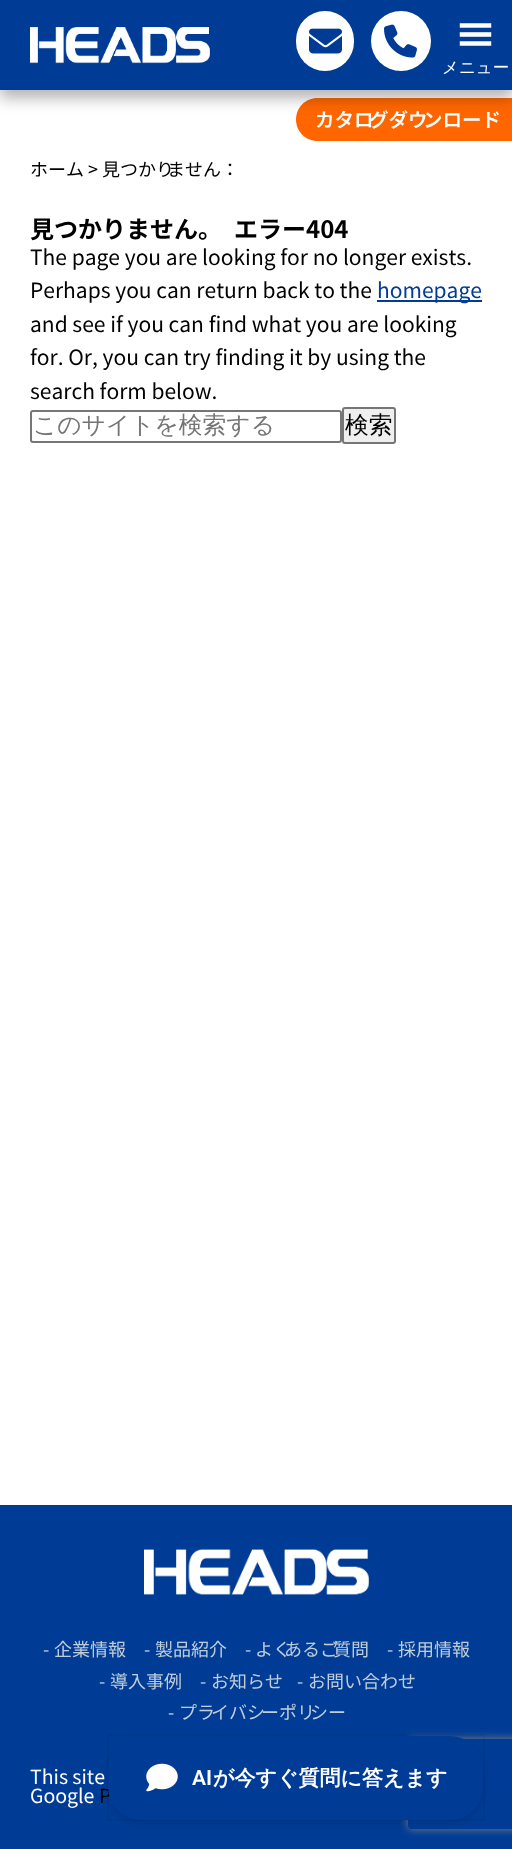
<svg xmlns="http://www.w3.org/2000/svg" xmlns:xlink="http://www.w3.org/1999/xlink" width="512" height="1849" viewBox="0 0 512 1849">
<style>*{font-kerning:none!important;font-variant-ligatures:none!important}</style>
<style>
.cls-1{font:500 16.5px WenQuanYi Zen Hei;fill:#ffffff}
.cls-2{font:600 19.5px Noto Sans JP;fill:#ffffff}
.cls-3{font:18px Noto Sans JP;fill:#000000}
.cls-4{font:bold 24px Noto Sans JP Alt;fill:#000000}
.cls-5{font:21px Noto Sans JP;fill:#000000}
.cls-6{font:21px Noto Sans JP;fill:#003c96}
.cls-7{font:500 23.75px WenQuanYi Zen Hei;fill:#757575}
.cls-8{font:500 23.75px WenQuanYi Zen Hei;fill:#000000}
.cls-9{font:18px Noto Sans JP;fill:#c0cdd9}
.cls-10{font:19.5px Noto Sans JP;fill:#ffffff}
.cls-11{font:19.5px Noto Sans JP;fill:#000000}
.cls-12{font:600 21px Roboto;fill:#ffffff}
.cls-13{font:bold 21px WenQuanYi Zen Hei;fill:#ffffff}
</style>
<defs>
<clipPath id="clip1"><path d="M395 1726H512V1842H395ZM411 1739H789C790.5 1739 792 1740.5 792 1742V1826C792 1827.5 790.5 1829 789 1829H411C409.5 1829 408 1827.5 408 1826V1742C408 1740.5 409.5 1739 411 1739Z" clip-rule="evenodd"/></clipPath>
</defs>
<rect width="100%" height="100%" fill="#ffffff"/>
<path fill="#ff6600" d="M317.5 98H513V141H317.5C305.5 141 296 131.5 296 119.5C296 107.5 305.5 98 317.5 98Z"/>
<rect fill="#000000" fill-opacity="0.3" filter="blur(7.5px)" x="0" y="8" width="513" height="90"/>
<rect fill="#003c96" x="0" y="0" width="512" height="90"/>
<rect fill="#ffffff" x="296" y="11" width="58" height="60" rx="29"/>
<image xlink:href="image0.png" x="309" y="28" width="33" height="26"/>
<circle fill="#ffffff" cx="401" cy="41" r="30"/>
<image xlink:href="image1.png" x="384" y="24" width="33" height="34"/>
<image xlink:href="image2.png" x="30" y="27" width="180" height="37"/>
<image xlink:href="image3.png" x="459" y="23" width="33" height="23"/>
<rect fill="#003c96" x="377" y="300" width="105" height="2"/>
<rect fill="none" stroke="#767676" stroke-width="2" x="31" y="411" width="310" height="31" rx="2"/>
<rect fill="#efefef" stroke="#767676" stroke-width="2" x="343" y="408" width="52" height="35" rx="2"/>
<rect fill="#003c96" x="0" y="1505" width="512" height="344"/>
<image xlink:href="image4.png" x="144" y="1549" width="225" height="46"/>
<rect fill="#000000" fill-opacity="0.1" filter="blur(4px)" x="108" y="1740" width="375" height="84" rx="33"/>
<g clip-path="url(#clip1)">
<rect fill="#808080" filter="blur(4px)" x="408" y="1739" width="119" height="90" rx="3"/>
</g>
<text class="cls-1" x="442" y="73">メニュー</text>
<text class="cls-2" x="315" y="127">カタロ</text>
<text class="cls-2" x="369" y="127">グダウ</text>
<text class="cls-2" x="423" y="127">ンロード</text>
<text class="cls-3" x="30" y="176">ホーム &gt; 見つかり</text>
<text class="cls-3" x="167" y="176">ません：</text>
<text class="cls-4" x="30" y="238">見つかりません。　エラー404</text>
<text class="cls-5"><tspan x="30" y="265">The page you are looking for no longer exists.</tspan><tspan x="30" y="298">Perhaps you can return back to the</tspan></text>
<text class="cls-6" x="377" y="298">homepage</text>
<text class="cls-5"><tspan x="30" y="332">and see if you can find what you are looking</tspan><tspan x="30" y="365">for. Or, you can try finding it by using the</tspan><tspan x="30" y="399">search form below.</tspan></text>
<text class="cls-7" x="33" y="433">このサイトを検索する</text>
<text class="cls-8" x="345" y="433">検索</text>
<text class="cls-9" x="43" y="1656">-</text>
<text class="cls-9" x="54" y="1656">企業情報</text>
<text class="cls-9" x="144" y="1656">-</text>
<text class="cls-9" x="155" y="1656">製品紹介</text>
<text class="cls-9" x="245" y="1656">-</text>
<text class="cls-9" x="255" y="1656">よく</text>
<text class="cls-9" x="284" y="1656">あるご</text>
<text class="cls-9" x="333" y="1656">質問</text>
<text class="cls-9" x="387" y="1656">-</text>
<text class="cls-9" x="398" y="1656">採用情報</text>
<text class="cls-9" x="99" y="1688">-</text>
<text class="cls-9" x="110" y="1688">導入事例</text>
<text class="cls-9" x="200" y="1688">-</text>
<text class="cls-9" x="211" y="1688">お知らせ</text>
<text class="cls-9" x="297" y="1688">-</text>
<text class="cls-9" x="308" y="1688">お問い合わせ</text>
<text class="cls-9" x="168" y="1719">-</text>
<text class="cls-9" x="179" y="1719">プラ</text>
<text class="cls-9" x="211" y="1719">イバシ</text>
<text class="cls-9" x="261" y="1719">ーポリ</text>
<text class="cls-9" x="310" y="1719">シー</text>
<text class="cls-10"><tspan x="30" y="1784">This site</tspan><tspan x="30" y="1803">Google</tspan></text>
<text class="cls-11" x="99" y="1803">P</text>
<rect fill="none" stroke="#000000" stroke-opacity="0.05" stroke-width="2" x="108" y="1735" width="376" height="85"/>
<rect fill="#003c96" x="108" y="1736" width="375" height="84" rx="33"/>
<image xlink:href="image5.png" x="146" y="1763" width="32" height="29"/>
<text class="cls-12" x="192" y="1785">AI</text>
<text class="cls-13" x="213" y="1785">が今すぐ質問に答えます</text>
</svg>
